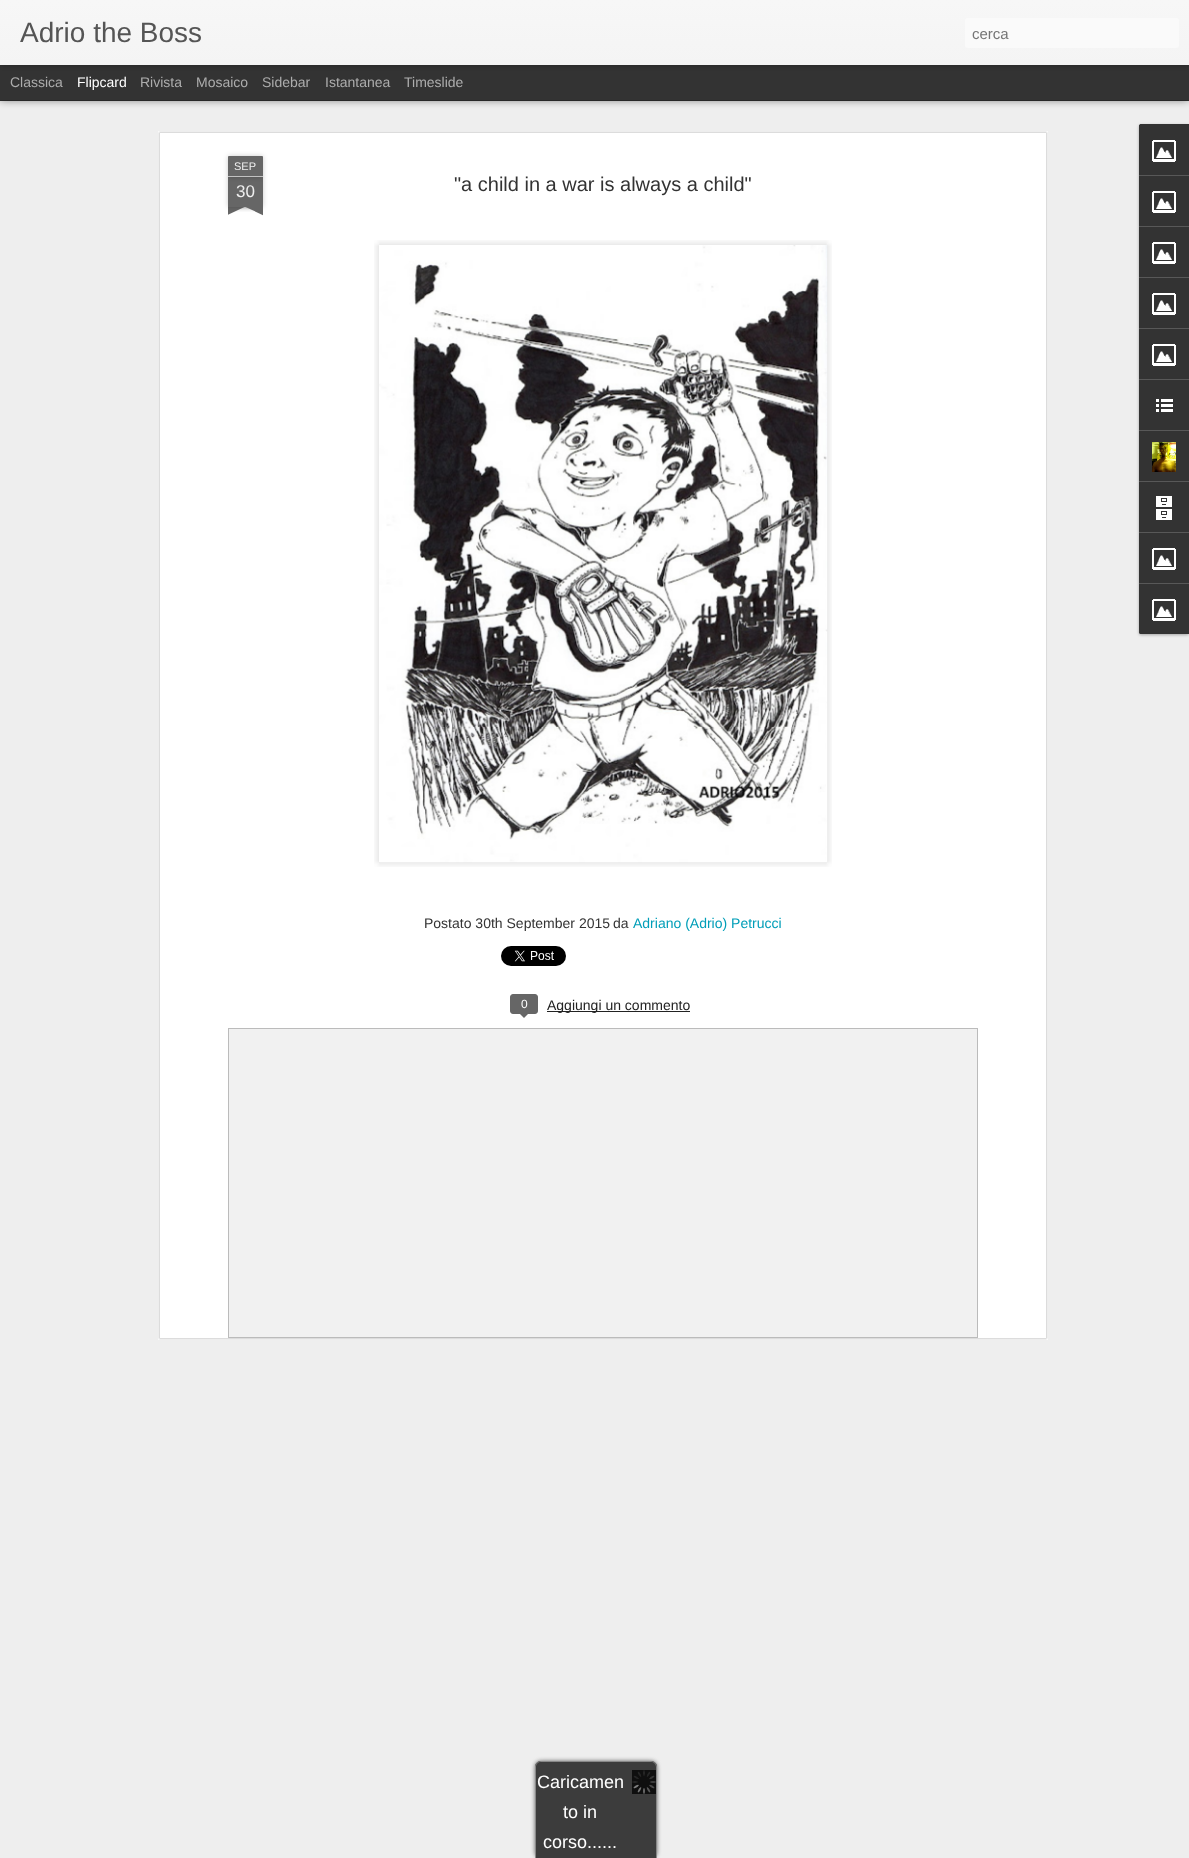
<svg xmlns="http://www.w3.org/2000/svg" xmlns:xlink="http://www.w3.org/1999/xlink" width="1189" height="1858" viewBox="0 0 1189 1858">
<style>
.cls-1{font:28px Liberation Sans;fill:#555555}
.cls-2{font:15px Liberation Sans;fill:#757575}
.cls-3{font:14px Liberation Sans;fill:#adadad}
.cls-4{font:14px Liberation Sans;fill:#ffffff}
.cls-5{font:11px Liberation Sans;fill:#eeeeee}
.cls-6{font:17px Liberation Sans;fill:#eeeeee}
.cls-7{font:20px Liberation Sans;fill:#333333}
.cls-8{font:14px Liberation Sans;fill:#333333}
.cls-9{font:14px Liberation Sans;fill:#009eb8}
.cls-10{font:12px Liberation Sans;fill:#ffffff}
.cls-11{font:14px Liberation Sans;fill:#222222}
.cls-12{font:18px Liberation Sans;fill:#ffffff}
</style>
<defs>
<linearGradient id="g1" gradientUnits="userSpaceOnUse" x1="0" y1="0" x2="0" y2="65"><stop offset="0" stop-color="#f7f7f7"/><stop offset="1" stop-color="#f4f4f4"/></linearGradient>
<clipPath id="clip1"><rect x="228" y="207" width="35" height="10"/></clipPath>
<clipPath id="clip2"><rect x="228" y="207" width="35" height="10"/></clipPath>
</defs>
<rect width="100%" height="100%" fill="#333333"/>
<rect fill="#eeeeee" x="0" y="101" width="1189" height="1757"/>
<rect fill="#000000" fill-opacity="0.5" filter="blur(4px)" x="0" y="65" width="1189" height="35"/>
<rect fill="#333333" x="0" y="65" width="1189" height="35"/>
<rect fill="#000000" fill-opacity="0.3" filter="blur(2.5px)" x="0" y="0" width="1189" height="65"/>
<rect fill="url(#g1)" x="0" y="0" width="1189" height="65"/>
<rect fill="#fafafa" x="965" y="18" width="214" height="30" rx="3"/>
<rect fill="#ffffff" x="158" y="131" width="890" height="1209"/>
<image xlink:href="image0.png" x="158" y="131" width="890" height="1209"/>
<rect fill="#000000" fill-opacity="0.2" filter="blur(2.5px)" x="228" y="177" width="35" height="30"/>
<rect fill="#666666" x="228" y="177" width="35" height="30"/>
<rect fill="#000000" fill-opacity="0.2" filter="blur(2.5px)" x="228" y="156" width="35" height="21" rx="1"/>
<path fill="#666666" d="M229 156H262C262.5 156 263 156.5 263 157V177H228V157C228 156.5 228.5 156 229 156Z"/>
<rect fill="#c2c2c2" x="228" y="176" width="35" height="1"/>
<g clip-path="url(#clip1)">
<rect fill="#000000" fill-opacity="0.2" filter="blur(2.5px)" x="219" y="197" width="50" height="10"/>
</g>
<g clip-path="url(#clip2)">
<path fill="#666666" d="M219 208L264 187L268 196L223 217Z"/>
</g>
<g clip-path="url(#clip1)">
<rect fill="#000000" fill-opacity="0.2" filter="blur(2.5px)" x="222" y="197" width="50" height="10"/>
</g>
<g clip-path="url(#clip2)">
<path fill="#666666" d="M226 187L271 208L267 217L222 196Z"/>
</g>
<image xlink:href="image1.png" x="374" y="240" width="458" height="627"/>
<image xlink:href="image2.png" x="380" y="245" width="448" height="618"/>
<image xlink:href="image3.png" x="501" y="946" width="65" height="20"/>
<rect fill="#666666" stroke="#666666" x="510.5" y="994.5" width="27" height="19" rx="2.5"/>
<path fill="#666666" d="M519 1013H529L524 1018Z"/>
<rect fill="#222222" x="547" y="1011" width="143" height="1"/>
<rect fill="#f1f1f1" stroke="#bbbbbb" x="228.5" y="1028.5" width="749" height="309"/>
<rect fill="#000000" fill-opacity="0.3" filter="blur(1.5px)" x="1139" y="125" width="50" height="510" rx="2"/>
<path fill="#333333" d="M1141 124H1189V634H1141C1140 634 1139 633 1139 632V126C1139 125 1140 124 1141 124Z"/>
<path fill="#333333" d="M1141 124H1189V175H1139V126C1139 125 1140 124 1141 124Z"/>
<image xlink:href="image4.png" x="1152" y="140" width="24" height="22"/>
<rect fill="#585858" x="1139" y="175" width="50" height="1"/>
<image xlink:href="image4.png" x="1152" y="191" width="24" height="22"/>
<rect fill="#585858" x="1139" y="226" width="50" height="1"/>
<image xlink:href="image4.png" x="1152" y="242" width="24" height="22"/>
<rect fill="#585858" x="1139" y="277" width="50" height="1"/>
<image xlink:href="image4.png" x="1152" y="293" width="24" height="22"/>
<rect fill="#585858" x="1139" y="328" width="50" height="1"/>
<image xlink:href="image4.png" x="1152" y="344" width="24" height="22"/>
<rect fill="#585858" x="1139" y="379" width="50" height="1"/>
<image xlink:href="image5.png" x="1156" y="399" width="17" height="13"/>
<rect fill="#585858" x="1139" y="430" width="50" height="1"/>
<image xlink:href="image6.png" x="1152" y="442" width="24" height="30"/>
<rect fill="#585858" x="1139" y="481" width="50" height="1"/>
<image xlink:href="image7.png" x="1156" y="496" width="16" height="24"/>
<rect fill="#585858" x="1139" y="532" width="50" height="1"/>
<image xlink:href="image4.png" x="1152" y="548" width="24" height="22"/>
<path fill="#333333" d="M1139 583H1189V634H1141C1140 634 1139 633 1139 632Z"/>
<rect fill="#585858" x="1139" y="583" width="50" height="1"/>
<image xlink:href="image4.png" x="1152" y="599" width="24" height="22"/>
<rect fill="#626262" filter="blur(2px)" x="535" y="1761" width="122" height="97" rx="6"/>
<path fill="#3c3c3c" d="M541 1761H651C654.5 1761 657 1763.5 657 1767V1858H535V1767C535 1763.5 537.5 1761 541 1761Z"/>
<path fill="#888888" fill-rule="evenodd" d="M541 1761H651C654 1761 657 1764 657 1767V1858H535V1767C535 1764 538 1761 541 1761ZM541 1762H651C654 1762 656 1764 656 1767V1858H536V1767C536 1764 538 1762 541 1762Z"/>
<image xlink:href="image8.png" x="632" y="1770" width="24" height="24"/>
<text class="cls-1" x="20" y="42">Adrio the Boss</text>
<text class="cls-2" x="972" y="39">cerca</text>
<text class="cls-3" x="10" y="87">Classica</text>
<text class="cls-4" x="77" y="87">Flipcard</text>
<text class="cls-3" x="140" y="87">Rivista</text>
<text class="cls-3" x="196" y="87">Mosaico</text>
<text class="cls-3" x="262" y="87">Sidebar</text>
<text class="cls-3" x="325" y="87">Istantanea</text>
<text class="cls-3" x="404" y="87">Timeslide</text>
<text class="cls-5" x="234" y="170">SEP</text>
<text class="cls-6" x="236" y="197">30</text>
<text class="cls-7" x="454" y="191">"a child in a war is always a child"</text>
<text class="cls-8" x="424" y="928">Postato 30th September 2015</text>
<text class="cls-8" x="613" y="928">da</text>
<text class="cls-9" x="633" y="928">Adriano (Adrio) Petrucci</text>
<text class="cls-10" x="521" y="1008">0</text>
<text class="cls-11" x="547" y="1010">Aggiungi un commento</text>
<text class="cls-12" x="537" y="1788">Caricamen</text>
<text class="cls-12" x="563" y="1818">to in</text>
<text class="cls-12" x="543" y="1848">corso......</text>
</svg>
